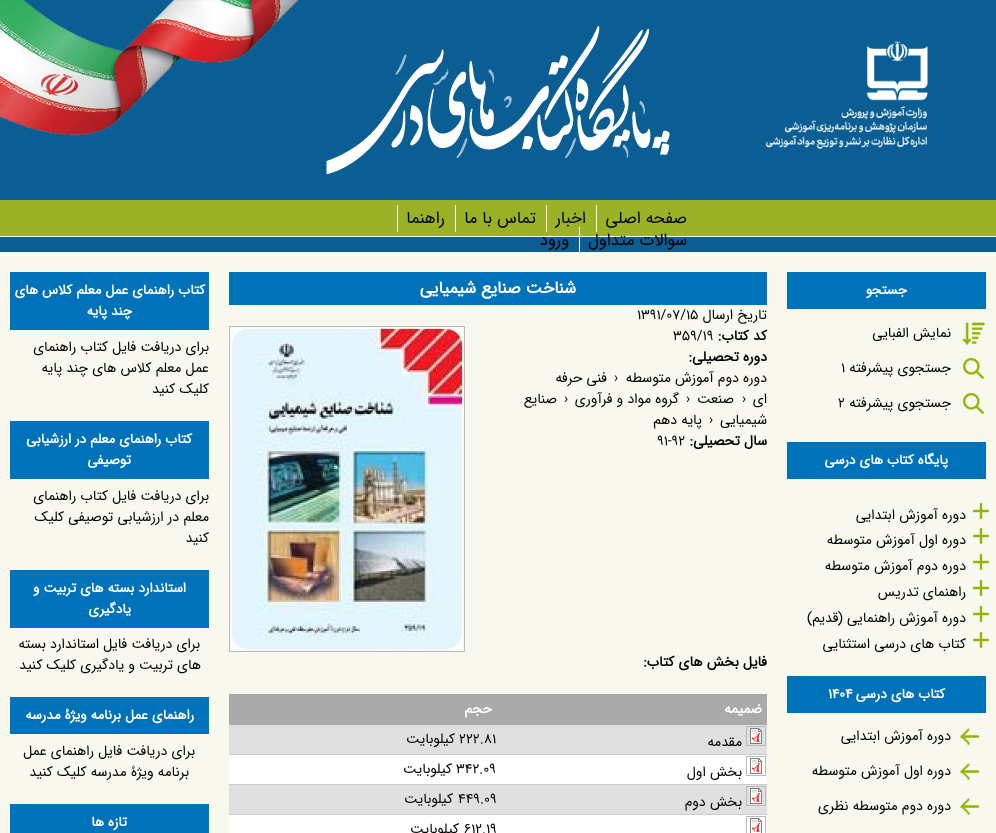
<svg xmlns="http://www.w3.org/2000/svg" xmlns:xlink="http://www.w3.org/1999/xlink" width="996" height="833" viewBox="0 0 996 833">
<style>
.cls-1{font:16.75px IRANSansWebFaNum;direction:rtl;fill:#000000}
.cls-2{font:bold 16.75px IRANSansWebFaNum;direction:rtl;fill:#ffffff}
.cls-3{font:14px IRANSansWebFaNum;direction:rtl;fill:#000000}
.cls-4{font:14px IRANSansWebFaNum;fill:#000000}
.cls-5{font:bold 14px IRANSansWebFaNum;direction:rtl;fill:#000000}
.cls-6{font:bold 14px IRANSansWebFaNum;direction:rtl;fill:#ffffff}
.cls-7{font:bold 13.6px IRANSansWebFaNum;direction:rtl;fill:#ffffff}
.cls-8{font:bold 13.6px IRANSansWebFaNum;fill:#ffffff}
</style>
<rect width="100%" height="100%" fill="#0a5e93"/>
<image xlink:href="image0.png" x="766" y="41" width="162" height="108"/>
<image xlink:href="image1.png" x="326" y="25" width="344" height="150"/>
<image xlink:href="image2.png" x="0" y="0" width="299" height="136"/>
<rect fill="#9cb226" x="0" y="200" width="996" height="36"/>
<rect fill="#ffffff" x="0" y="236" width="996" height="1"/>
<rect fill="#ffffff" x="596" y="205" width="1" height="27"/>
<rect fill="#ffffff" x="546" y="205" width="1" height="27"/>
<rect fill="#ffffff" x="455" y="205" width="1" height="27"/>
<rect fill="#ffffff" x="397" y="205" width="1" height="27"/>
<text class="cls-1" x="687" y="223">صفحه اصلی</text>
<text class="cls-1" x="586" y="223">اخبار</text>
<text class="cls-1" x="536" y="223">تماس با ما</text>
<text class="cls-1" x="445" y="223">راهنما</text>
<text class="cls-1" x="687" y="245">سوالات متداول</text>
<rect fill="#ffffff" x="579" y="227" width="1" height="27"/>
<text class="cls-1" x="569" y="245">ورود</text>
<rect fill="#f9f8ee" x="0" y="252" width="996" height="581"/>
<rect fill="#0072b9" x="229" y="272" width="538" height="33"/>
<text class="cls-2" x="576" y="293">شناخت صنایع شیمیایی</text>
<text class="cls-3" x="767" y="319">تاریخ ارسال</text>
<text class="cls-4" x="637" y="319">1391/07/15</text>
<text class="cls-5" x="767" y="340">کد کتاب:</text>
<text class="cls-4" x="673" y="340">359/19</text>
<rect fill="none" stroke="#bbbbbb" x="229.5" y="326.5" width="235" height="325"/>
<image xlink:href="image3.png" x="231" y="328" width="232" height="322"/>
<text class="cls-5" x="767" y="361">دوره تحصیلی:</text>
<text class="cls-3" x="767" y="382">دوره دوم آموزش متوسطه</text>
<text class="cls-4" x="614" y="382">›</text>
<text class="cls-3" x="607" y="382">فنی حرفه</text>
<text class="cls-3" x="767" y="403">ای</text>
<text class="cls-4" x="742" y="403">›</text>
<text class="cls-3" x="734" y="403">صنعت</text>
<text class="cls-4" x="686" y="403">›</text>
<text class="cls-3" x="679" y="403">گروه مواد و فرآوری</text>
<text class="cls-4" x="564" y="403">›</text>
<text class="cls-3" x="557" y="403">صنایع</text>
<text class="cls-3" x="767" y="424">شیمیایی</text>
<text class="cls-4" x="709" y="424">›</text>
<text class="cls-3" x="702" y="424">پایه دهم</text>
<text class="cls-5" x="767" y="445">سال تحصیلی:</text>
<text class="cls-4" x="657" y="445">91-92</text>
<text class="cls-5" x="767" y="666">فایل بخش های کتاب:</text>
<rect fill="#aaaaaa" x="229" y="694" width="538" height="31"/>
<text class="cls-6" x="762" y="713">ضمیمه</text>
<text class="cls-6" x="492" y="713">حجم</text>
<rect fill="#e0e0e0" x="229" y="725" width="538" height="29"/>
<rect fill="#cccccc" x="229" y="754" width="538" height="1"/>
<text class="cls-3" x="742" y="746">مقدمه</text>
<rect fill="none" stroke="#bbbbbb" x="746.5" y="726.5" width="19" height="19"/>
<image xlink:href="image4.png" x="750" y="728" width="12" height="16"/>
<text class="cls-4" x="459" y="743">222.81</text>
<text class="cls-3" x="455" y="743">کیلوبایت</text>
<rect fill="#ffffff" x="229" y="755" width="538" height="29"/>
<rect fill="#cccccc" x="229" y="784" width="538" height="1"/>
<text class="cls-3" x="742" y="776">بخش اول</text>
<rect fill="none" stroke="#bbbbbb" x="746.5" y="756.5" width="19" height="19"/>
<image xlink:href="image5.png" x="750" y="758" width="12" height="16"/>
<text class="cls-4" x="456" y="773">342.09</text>
<text class="cls-3" x="452" y="773">کیلوبایت</text>
<rect fill="#e0e0e0" x="229" y="785" width="538" height="29"/>
<rect fill="#cccccc" x="229" y="814" width="538" height="1"/>
<text class="cls-3" x="742" y="806">بخش دوم</text>
<rect fill="none" stroke="#bbbbbb" x="746.5" y="786.5" width="19" height="19"/>
<image xlink:href="image4.png" x="750" y="788" width="12" height="16"/>
<text class="cls-4" x="458" y="803">449.09</text>
<text class="cls-3" x="453" y="803">کیلوبایت</text>
<rect fill="#ffffff" x="229" y="815" width="538" height="18"/>
<rect fill="none" stroke="#bbbbbb" x="746.5" y="816.5" width="19" height="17"/>
<image xlink:href="image6.png" x="750" y="818" width="12" height="15"/>
<text class="cls-4" x="464" y="833">612.19</text>
<text class="cls-3" x="459" y="833">کیلوبایت</text>
<rect fill="#0072b9" x="787" y="272" width="199" height="37"/>
<text class="cls-7" x="907" y="294">جستجو</text>
<image xlink:href="image7.png" x="962" y="322" width="23" height="24"/>
<text class="cls-3" x="951" y="337">نمایش الفبایی</text>
<image xlink:href="image8.png" x="963" y="358" width="21" height="21"/>
<text class="cls-3" x="951" y="372">جستجوی پیشرفته</text>
<text class="cls-4" x="841" y="372">1</text>
<image xlink:href="image8.png" x="963" y="393" width="21" height="21"/>
<text class="cls-3" x="951" y="407">جستجوی پیشرفته</text>
<text class="cls-4" x="838" y="407">2</text>
<rect fill="#0072b9" x="787" y="442" width="199" height="37"/>
<text class="cls-7" x="948" y="464">پایگاه کتاب های درسی</text>
<image xlink:href="image9.png" x="973" y="503" width="16" height="16"/>
<text class="cls-3" x="966" y="519">دوره آموزش ابتدایی</text>
<image xlink:href="image9.png" x="973" y="528" width="16" height="16"/>
<text class="cls-3" x="966" y="544">دوره اول آموزش متوسطه</text>
<image xlink:href="image9.png" x="973" y="554" width="16" height="16"/>
<text class="cls-3" x="966" y="570">دوره دوم آموزش متوسطه</text>
<image xlink:href="image9.png" x="973" y="580" width="16" height="16"/>
<text class="cls-3" x="966" y="596">راهنمای تدریس</text>
<image xlink:href="image9.png" x="973" y="606" width="16" height="16"/>
<text class="cls-3" x="966" y="622">دوره آموزش راهنمایی (قدیم)</text>
<image xlink:href="image9.png" x="973" y="632" width="16" height="16"/>
<text class="cls-3" x="966" y="648">کتاب های درسی استثنایی</text>
<rect fill="#0072b9" x="787" y="676" width="199" height="37"/>
<text class="cls-7" x="945" y="698">کتاب های درسی</text>
<text class="cls-8" x="828" y="698">1404</text>
<image xlink:href="image10.png" x="960" y="728" width="19" height="17"/>
<text class="cls-3" x="951" y="740">دوره آموزش ابتدایی</text>
<image xlink:href="image10.png" x="960" y="763" width="19" height="17"/>
<text class="cls-3" x="951" y="775">دوره اول آموزش متوسطه</text>
<image xlink:href="image10.png" x="960" y="798" width="19" height="17"/>
<text class="cls-3" x="951" y="810">دوره دوم متوسطه نظری</text>
<rect fill="#0072b9" x="10" y="272" width="199" height="58"/>
<text class="cls-7" x="205" y="294">کتاب راهنمای عمل معلم کلاس های</text>
<text class="cls-7" x="132" y="315">چند پایه</text>
<text class="cls-3"><tspan x="209" y="351">برای دریافت فایل کتاب راهنمای</tspan><tspan x="209" y="372">عمل معلم کلاس های چند پایه</tspan><tspan x="209" y="393">کلیک کنید</tspan></text>
<rect fill="#0072b9" x="10" y="421" width="199" height="58"/>
<text class="cls-7" x="192" y="443">کتاب راهنمای معلم در ارزشیابی</text>
<text class="cls-7" x="131" y="464">توصیفی</text>
<text class="cls-3"><tspan x="209" y="500">برای دریافت فایل کتاب راهنمای</tspan><tspan x="209" y="521">معلم در ارزشیابی توصیفی کلیک</tspan><tspan x="209" y="542">کنید</tspan></text>
<rect fill="#0072b9" x="10" y="570" width="199" height="58"/>
<text class="cls-7" x="186" y="592">استاندارد بسته های تربیت و</text>
<text class="cls-7" x="131" y="613">یادگیری</text>
<text class="cls-3" x="200" y="648">برای دریافت فایل استاندارد بسته</text>
<text class="cls-3" x="201" y="669">های تربیت و یادگیری کلیک کنید</text>
<rect fill="#0072b9" x="10" y="697" width="199" height="37"/>
<text class="cls-7" x="194" y="719">راهنمای عمل برنامه ویژۀ مدرسه</text>
<text class="cls-3" x="195" y="755">برای دریافت فایل راهنمای عمل</text>
<text class="cls-3" x="189" y="776">برنامه ویژۀ مدرسه کلیک کنید</text>
<rect fill="#0072b9" x="10" y="804" width="199" height="29"/>
<text class="cls-7" x="127" y="826">تازه ها</text>
</svg>
